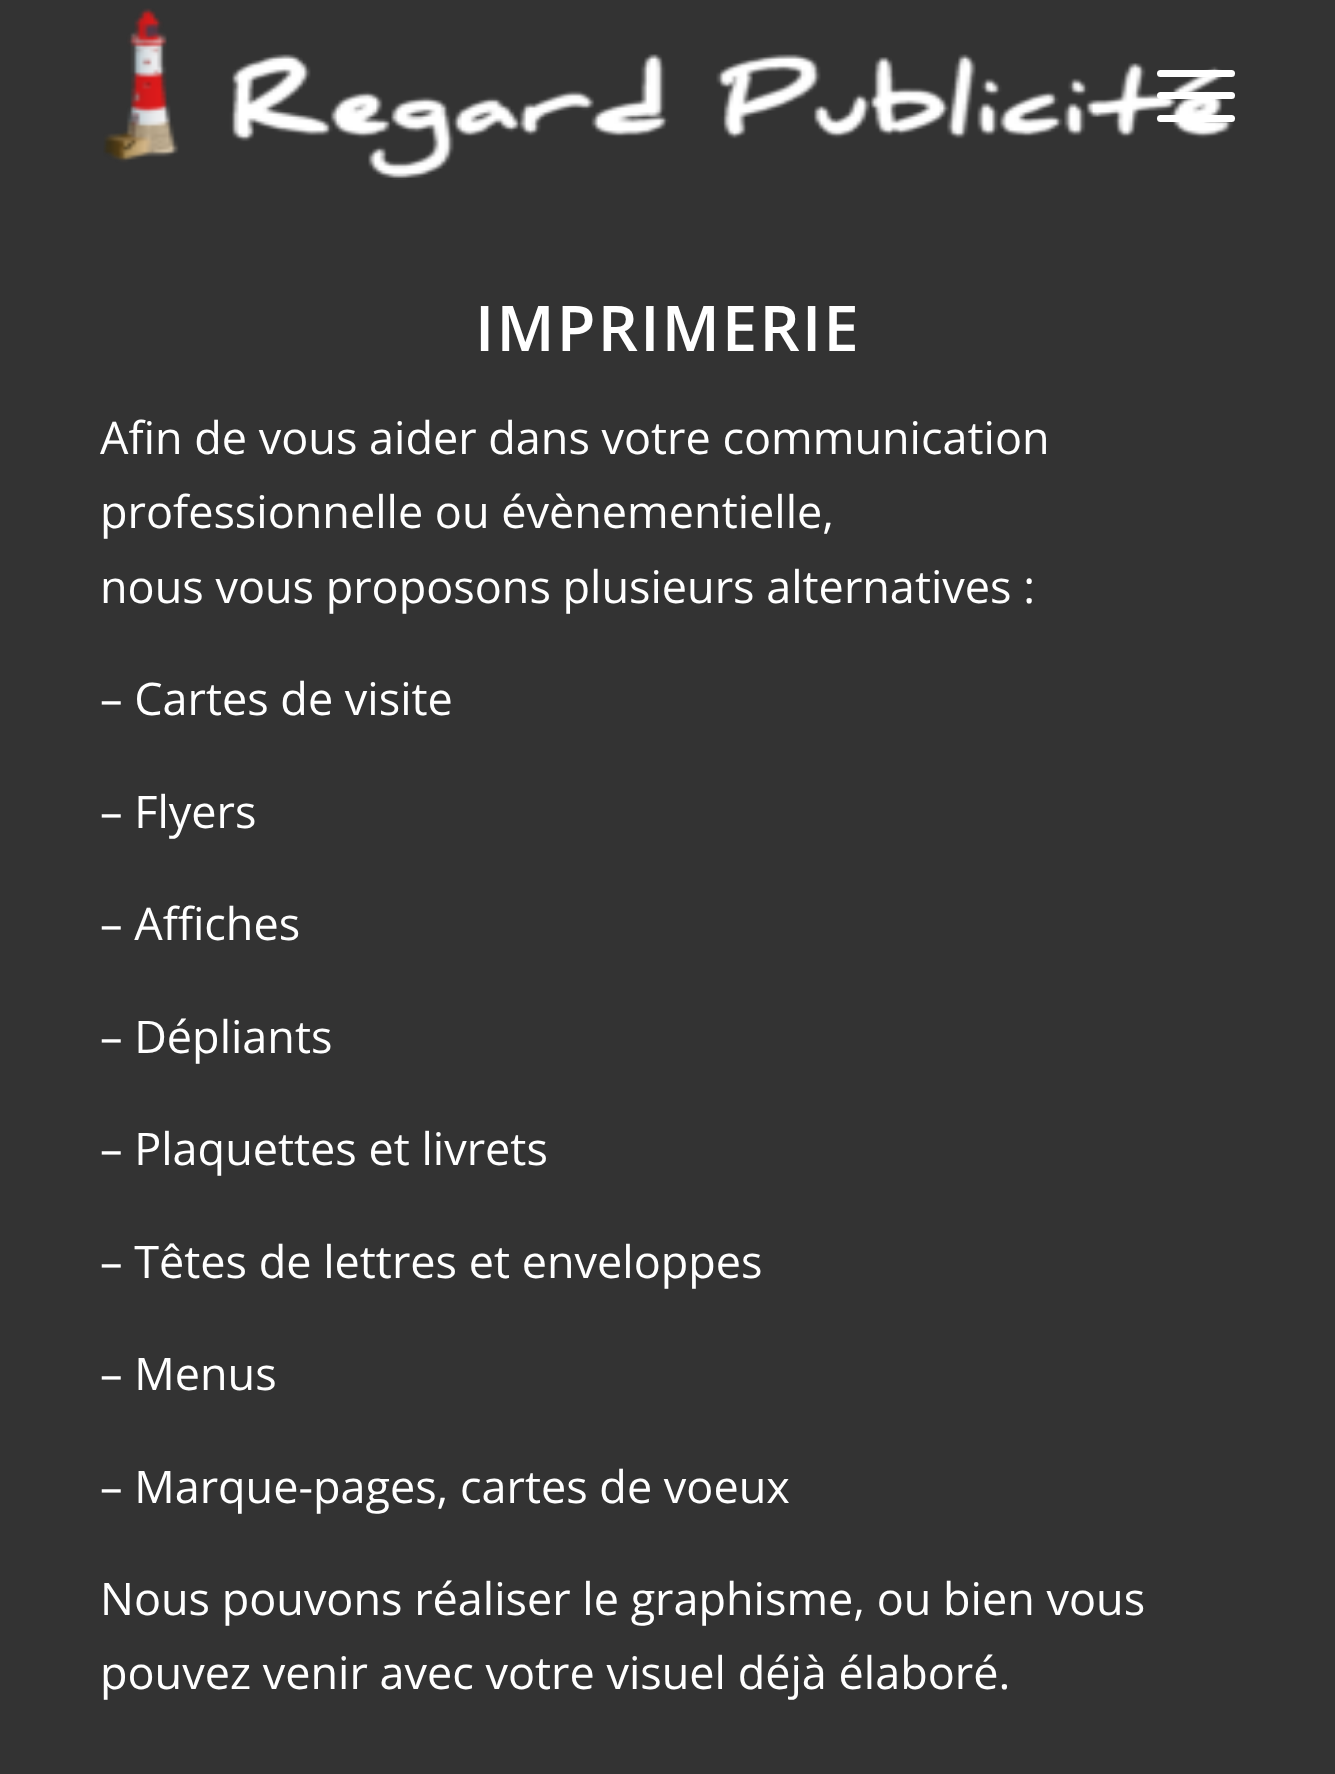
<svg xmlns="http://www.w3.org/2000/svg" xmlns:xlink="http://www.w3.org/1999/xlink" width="1335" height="1774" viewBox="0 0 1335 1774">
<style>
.cls-1{font:600 63px Open Sans;letter-spacing:2.25px;fill:#ffffff}
.cls-2{font:45px Open Sans;fill:#ffffff}
</style>
<rect width="100%" height="100%" fill="#333333"/>
<image xlink:href="image0.png" x="103" y="8" width="1130" height="172"/>
<rect fill="#ffffff" x="1157" y="92" width="78" height="7" rx="3.5"/>
<rect fill="#ffffff" x="1157" y="70" width="78" height="7" rx="3.5"/>
<rect fill="#ffffff" x="1157" y="115" width="78" height="7" rx="3.5"/>
<text class="cls-1" x="475" y="351">IMPRIMERIE</text>
<text class="cls-2"><tspan x="100" y="454">Afin de vous aider dans votre communication</tspan><tspan x="100" y="528">professionnelle ou évènementielle,</tspan><tspan x="100" y="603">nous vous proposons plusieurs alternatives :</tspan></text>
<text class="cls-2" x="100" y="715">– Cartes de visite</text>
<text class="cls-2" x="100" y="828">– Flyers</text>
<text class="cls-2" x="100" y="940">– Affiches</text>
<text class="cls-2" x="100" y="1053">– Dépliants</text>
<text class="cls-2" x="100" y="1165">– Plaquettes et livrets</text>
<text class="cls-2" x="100" y="1278">– Têtes de lettres et enveloppes</text>
<text class="cls-2" x="100" y="1390">– Menus</text>
<text class="cls-2" x="100" y="1503">– Marque-pages, cartes de voeux</text>
<text class="cls-2"><tspan x="100" y="1615">Nous pouvons réaliser le graphisme, ou bien vous</tspan><tspan x="100" y="1689">pouvez venir avec votre visuel déjà élaboré.</tspan></text>
</svg>
